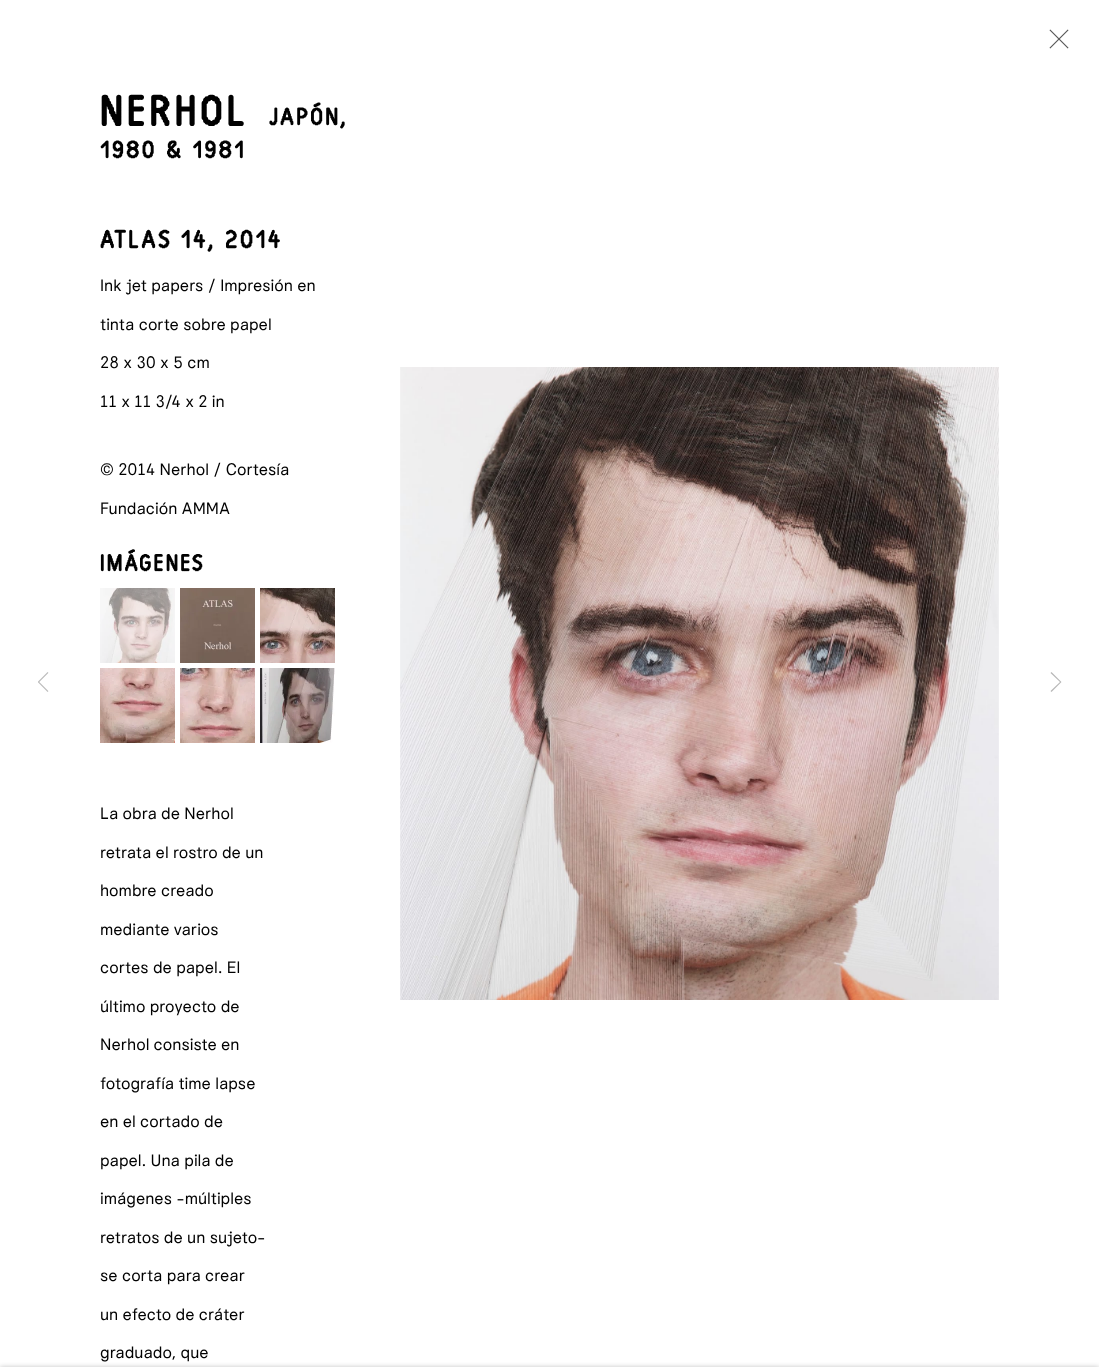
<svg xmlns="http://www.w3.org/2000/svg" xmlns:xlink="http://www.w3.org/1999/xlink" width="1099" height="1367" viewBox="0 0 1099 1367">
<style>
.cls-1{font:500 24.25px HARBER;letter-spacing:4px;fill:#010101}
.cls-2{font:500 13.75px HARBER;letter-spacing:2.25px;fill:#010101}
.cls-3{font:500 14.25px HARBER;letter-spacing:2.25px;fill:#010101}
.cls-4{font:16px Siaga;fill:#010101}
.cls-5{font:500 13.25px HARBER;letter-spacing:2px;fill:#010101}
</style>
<rect width="100%" height="100%" fill="#ffffff"/>
<image xlink:href="image0.png" x="1049" y="29" width="20" height="20"/>
<image xlink:href="image1.png" x="100" y="588" width="75" height="75"/>
<image xlink:href="image2.png" x="180" y="588" width="75" height="75"/>
<image xlink:href="image3.png" x="260" y="588" width="75" height="75"/>
<image xlink:href="image4.png" x="100" y="668" width="75" height="75"/>
<image xlink:href="image5.png" x="180" y="668" width="75" height="75"/>
<image xlink:href="image6.png" x="260" y="668" width="75" height="75"/>
<image xlink:href="image7.png" x="400" y="367" width="599" height="633"/>
<image xlink:href="image8.png" x="38" y="672" width="11" height="20"/>
<path fill="#b9b9b9" d="M1061.5 682L1051.5 672L1050.5 673L1060 682L1050.5 691L1051.5 692Z"/>
<rect fill="#000000" fill-opacity="0.23" filter="blur(2.5px)" x="0" y="1367" width="1099" height="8"/>
<text class="cls-1" x="100" y="124">NERHOL</text>
<text class="cls-2" x="269" y="124">JAPÓN,</text>
<text class="cls-2" x="100" y="157">1980 &amp; 1981</text>
<text class="cls-3" x="100" y="247" word-spacing="-1">ATLAS 14</text>
<text class="cls-3" x="208" y="247">, 2014</text>
<text class="cls-4" x="100" y="291">Ink jet papers / Impresión en</text>
<text class="cls-4" x="100" y="330">tinta corte sobre papel</text>
<text class="cls-4" x="100" y="368">28 x 30 x 5 cm</text>
<text class="cls-4" x="100" y="407">11 x 11 3/4 x 2 in</text>
<text class="cls-4" x="100" y="475">© 2014 Nerhol / Cortesía</text>
<text class="cls-4" x="100" y="514">Fundación AMMA</text>
<text class="cls-5" x="100" y="570">IMÁGENES</text>
<text class="cls-4" x="100" y="819">La obra de Nerhol</text>
<text class="cls-4" x="100" y="858">retrata el rostro de un</text>
<text class="cls-4" x="100" y="896">hombre creado</text>
<text class="cls-4" x="100" y="935">mediante varios</text>
<text class="cls-4" x="100" y="973">cortes de papel. El</text>
<text class="cls-4" x="100" y="1012">último proyecto de</text>
<text class="cls-4" x="100" y="1050">Nerhol consiste en</text>
<text class="cls-4" x="100" y="1089">fotografía time lapse</text>
<text class="cls-4" x="100" y="1127">en el cortado de</text>
<text class="cls-4" x="100" y="1166">papel. Una pila de</text>
<text class="cls-4" x="100" y="1204">imágenes -múltiples</text>
<text class="cls-4" x="100" y="1243">retratos de un sujeto-</text>
<text class="cls-4" x="100" y="1281">se corta para crear</text>
<text class="cls-4" x="100" y="1320">un efecto de cráter</text>
<text class="cls-4" x="100" y="1358">graduado, que</text>
</svg>
